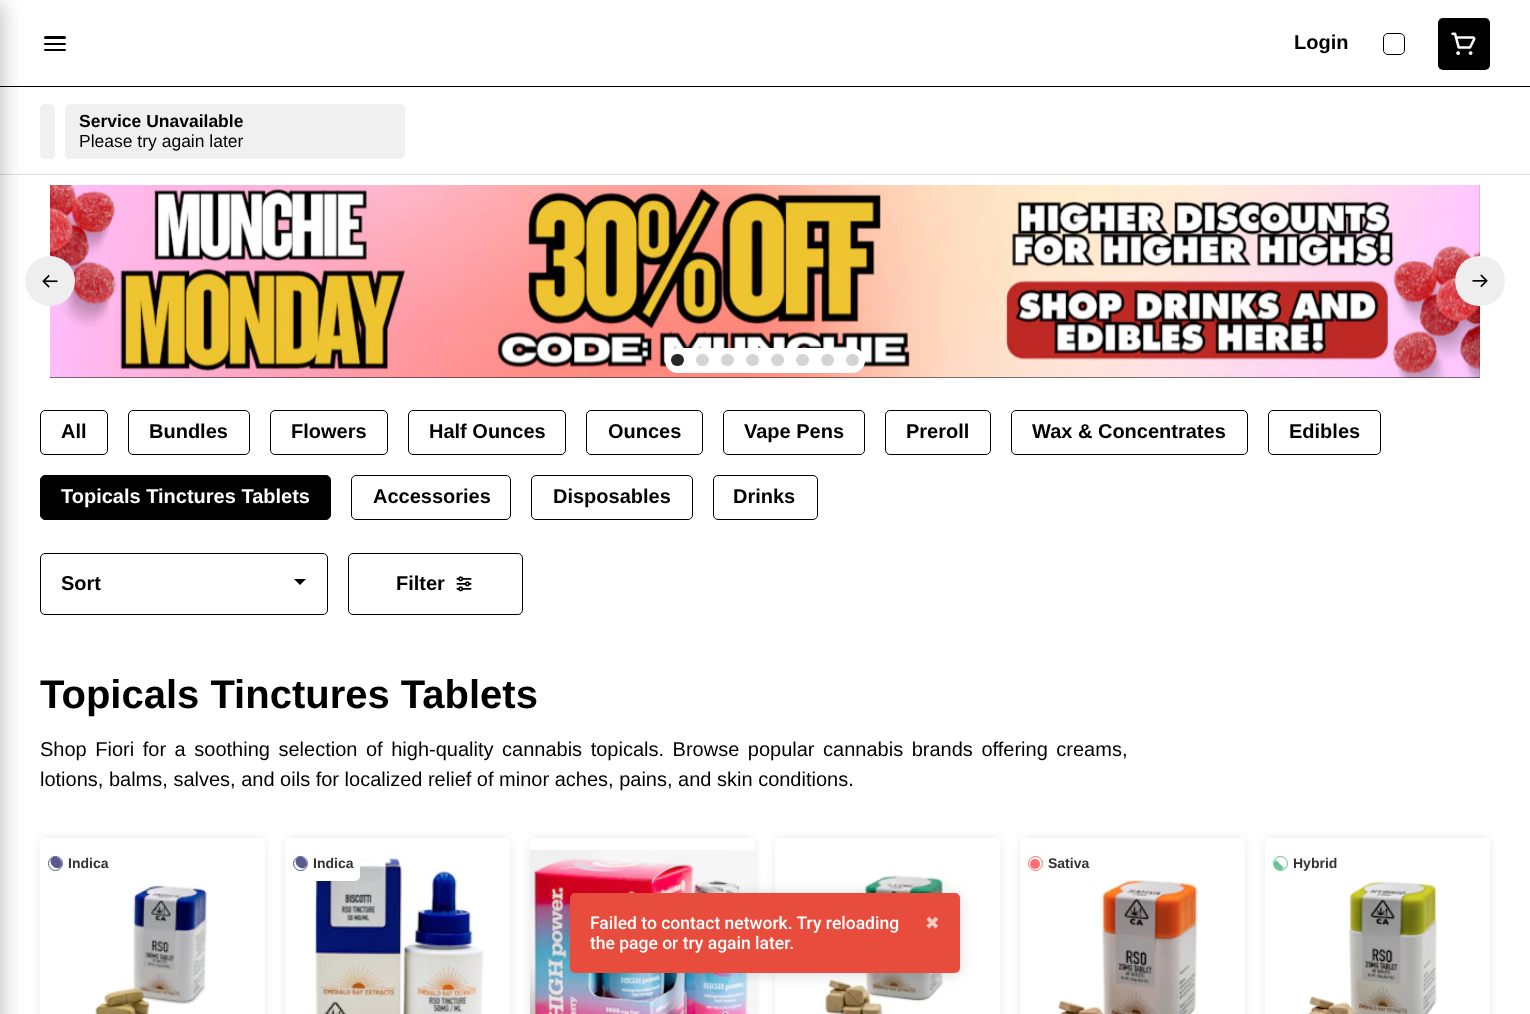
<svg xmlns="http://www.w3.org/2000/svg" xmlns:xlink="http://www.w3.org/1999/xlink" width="1530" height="1014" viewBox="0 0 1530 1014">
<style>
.cls-1{font:bold 20px Liberation Sans;fill:#000000}
.cls-2{font:bold 17.5px Liberation Sans;fill:#000000}
.cls-3{font:17.5px Liberation Sans;fill:#000000}
.cls-4{font:bold 20px Liberation Sans;fill:#ffffff}
.cls-5{font:bold 40px Liberation Sans;fill:#000000}
.cls-6{font:20px Liberation Sans;fill:#000000}
.cls-7{font:bold 14px Liberation Sans;fill:#333333}
.cls-8{font:500 17.5px Roboto;fill:#ffffff}
.cls-9{font:17.5px DejaVu Sans;fill:#f8c9c5}
</style>
<defs>
<clipPath id="clip1"><path d="M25 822H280V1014H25ZM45 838H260C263 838 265 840 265 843V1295C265 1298 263 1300 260 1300H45C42 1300 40 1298 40 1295V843C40 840 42 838 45 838Z" clip-rule="evenodd"/></clipPath>
<clipPath id="clip2"><path d="M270 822H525V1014H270ZM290 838H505C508 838 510 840 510 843V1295C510 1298 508 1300 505 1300H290C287 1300 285 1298 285 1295V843C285 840 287 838 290 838Z" clip-rule="evenodd"/></clipPath>
<clipPath id="clip3"><path d="M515 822H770V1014H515ZM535 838H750C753 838 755 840 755 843V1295C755 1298 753 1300 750 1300H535C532 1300 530 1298 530 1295V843C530 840 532 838 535 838Z" clip-rule="evenodd"/></clipPath>
<clipPath id="clip4"><path d="M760 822H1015V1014H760ZM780 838H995C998 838 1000 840 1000 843V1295C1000 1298 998 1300 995 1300H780C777 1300 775 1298 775 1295V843C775 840 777 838 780 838Z" clip-rule="evenodd"/></clipPath>
<clipPath id="clip5"><path d="M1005 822H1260V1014H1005ZM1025 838H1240C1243 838 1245 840 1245 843V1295C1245 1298 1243 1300 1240 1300H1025C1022 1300 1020 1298 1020 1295V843C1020 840 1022 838 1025 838Z" clip-rule="evenodd"/></clipPath>
<clipPath id="clip6"><path d="M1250 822H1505V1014H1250ZM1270 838H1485C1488 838 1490 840 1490 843V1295C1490 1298 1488 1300 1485 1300H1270C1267 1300 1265 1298 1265 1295V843C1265 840 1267 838 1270 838Z" clip-rule="evenodd"/></clipPath>
<radialGradient id="g1" gradientUnits="userSpaceOnUse" cx="1273" cy="862" r="125"><stop offset="0" stop-color="#5ec291"/><stop offset="1" stop-color="#ffffff"/></radialGradient>
</defs>
<rect width="100%" height="100%" fill="#ffffff"/>
<rect fill="#000000" x="0" y="86" width="1530" height="1"/>
<rect fill="#e1e1e1" x="0" y="174" width="1530" height="1"/>
<rect fill="#000000" x="50" y="185" width="1430" height="193"/>
<image xlink:href="image1.png" x="50" y="185" width="1430" height="193"/>
<circle fill="#eeeeee" cx="50" cy="281" r="25"/>
<rect fill="#000000" fill-opacity="0.3" filter="blur(11px)" x="-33" y="3" width="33" height="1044"/>
<rect fill="#000000" x="44" y="43" width="22" height="2" rx="1"/>
<rect fill="#000000" x="44" y="49" width="22" height="2" rx="1"/>
<rect fill="#000000" x="44" y="36" width="22" height="3" rx="1.5"/>
<rect fill="none" stroke="#000000" x="1383.5" y="33.5" width="21" height="21" rx="4.5"/>
<rect fill="#000000" x="1438" y="18" width="52" height="52" rx="5"/>
<image xlink:href="image0.png" x="1451" y="32" width="25" height="23"/>
<rect fill="#f0f0f0" stroke="#f0f0f0" x="40.5" y="104.5" width="14" height="54" rx="4.5"/>
<rect fill="#f0f0f0" stroke="#f0f0f0" x="65.5" y="104.5" width="339" height="54" rx="4.5"/>
<rect fill="#ffffff" x="665" y="348" width="200" height="25" rx="12.5"/>
<rect fill="#272727" x="671" y="354" width="13" height="12" rx="6"/>
<rect fill="#d4d4d4" x="696" y="354" width="13" height="12" rx="6"/>
<rect fill="#d4d4d4" x="721" y="354" width="13" height="12" rx="6"/>
<rect fill="#d4d4d4" x="746" y="354" width="13" height="12" rx="6"/>
<rect fill="#d4d4d4" x="771" y="354" width="13" height="12" rx="6"/>
<rect fill="#d4d4d4" x="796" y="354" width="13" height="12" rx="6"/>
<rect fill="#d4d4d4" x="821" y="354" width="13" height="12" rx="6"/>
<rect fill="#d4d4d4" x="846" y="354" width="13" height="12" rx="6"/>
<image xlink:href="image2.png" x="42" y="274" width="16" height="14"/>
<path fill="#eeeeee" d="M1480 306C1447 306 1447 256 1480 256C1513 256 1513 306 1480 306Z"/>
<image xlink:href="image3.png" x="1472" y="274" width="16" height="14"/>
<rect fill="none" stroke="#000000" x="40.5" y="410.5" width="67" height="44" rx="4.5"/>
<rect fill="none" stroke="#000000" x="128.5" y="410.5" width="121" height="44" rx="4.5"/>
<rect fill="none" stroke="#000000" x="270.5" y="410.5" width="117" height="44" rx="4.5"/>
<rect fill="none" stroke="#000000" x="408.5" y="410.5" width="157" height="44" rx="4.5"/>
<rect fill="none" stroke="#000000" x="586.5" y="410.5" width="116" height="44" rx="4.5"/>
<rect fill="none" stroke="#000000" x="723.5" y="410.5" width="141" height="44" rx="4.5"/>
<rect fill="none" stroke="#000000" x="885.5" y="410.5" width="105" height="44" rx="4.5"/>
<rect fill="none" stroke="#000000" x="1011.5" y="410.5" width="236" height="44" rx="4.5"/>
<rect fill="none" stroke="#000000" x="1268.5" y="410.5" width="112" height="44" rx="4.5"/>
<rect fill="#000000" stroke="#000000" x="40.5" y="475.5" width="290" height="44" rx="4.5"/>
<rect fill="none" stroke="#000000" x="351.5" y="475.5" width="159" height="44" rx="4.5"/>
<rect fill="none" stroke="#000000" x="531.5" y="475.5" width="161" height="44" rx="4.5"/>
<rect fill="none" stroke="#000000" x="713.5" y="475.5" width="104" height="44" rx="4.5"/>
<rect fill="none" stroke="#000000" x="40.5" y="553.5" width="287" height="61" rx="4.5"/>
<path fill="#000000" d="M294 579H306L300 585Z"/>
<rect fill="none" stroke="#000000" x="348.5" y="553.5" width="174" height="61" rx="4.5"/>
<image xlink:href="image4.png" x="456" y="576" width="16" height="16"/>
<g clip-path="url(#clip1)">
<rect fill="#000000" fill-opacity="0.2" filter="blur(6px)" x="44" y="841" width="217" height="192" rx="1"/>
</g>
<circle fill="none" stroke="#575990" cx="55.5" cy="863.5" r="7"/>
<path fill="#575990" d="M52 858C56.5 853.5 65.5 862.5 60.5 867C56 871.5 47 863 52 858Z"/>
<image xlink:href="image5.png" x="95" y="884" width="116" height="130"/>
<g clip-path="url(#clip2)">
<rect fill="#000000" fill-opacity="0.2" filter="blur(6px)" x="289" y="841" width="217" height="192" rx="1"/>
</g>
<image xlink:href="image6.png" x="313" y="857" width="171" height="157"/>
<rect fill="#ffffff" x="285" y="848" width="75" height="33" rx="5"/>
<circle fill="none" stroke="#575990" cx="300.5" cy="863.5" r="7"/>
<path fill="#575990" d="M297 858C301.5 853.5 310.5 862.5 305.5 867C301 871.5 292 863 297 858Z"/>
<g clip-path="url(#clip3)">
<rect fill="#000000" fill-opacity="0.2" filter="blur(6px)" x="534" y="841" width="217" height="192" rx="1"/>
</g>
<image xlink:href="image7.png" x="530" y="850" width="225" height="164"/>
<g clip-path="url(#clip4)">
<rect fill="#000000" fill-opacity="0.2" filter="blur(6px)" x="779" y="841" width="217" height="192" rx="1"/>
</g>
<image xlink:href="image8.png" x="824" y="874" width="126" height="140"/>
<g clip-path="url(#clip5)">
<rect fill="#000000" fill-opacity="0.2" filter="blur(6px)" x="1024" y="841" width="217" height="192" rx="1"/>
</g>
<circle fill="none" stroke="#fd6f71" cx="1035.5" cy="863.5" r="7"/>
<circle fill="#fd6f71" cx="1035" cy="864" r="5"/>
<image xlink:href="image9.png" x="1057" y="878" width="143" height="136"/>
<g clip-path="url(#clip6)">
<rect fill="#000000" fill-opacity="0.2" filter="blur(6px)" x="1269" y="841" width="217" height="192" rx="1"/>
</g>
<circle fill="none" stroke="#5ec291" cx="1280.5" cy="863.5" r="7"/>
<path fill="url(#g1)" d="M1284 868L1276 860C1270 865.5 1278.5 874 1284 868Z"/>
<image xlink:href="image10.png" x="1305" y="878" width="132" height="136"/>
<rect fill="#000000" fill-opacity="0.05" filter="blur(9.5px)" x="570" y="895" width="390" height="80" rx="5"/>
<rect fill="#000000" fill-opacity="0.1" filter="blur(6px)" x="570" y="894" width="390" height="80" rx="5"/>
<rect fill="#e74c3c" x="570" y="893" width="390" height="80" rx="5"/>
<text class="cls-1" x="1294" y="49">Login</text>
<text class="cls-2" x="79" y="127">Service Unavailable</text>
<text class="cls-3" x="79" y="147">Please try again later</text>
<text class="cls-1" x="61" y="438">All</text>
<text class="cls-1" x="149" y="438">Bundles</text>
<text class="cls-1" x="291" y="438">Flowers</text>
<text class="cls-1" x="429" y="438">Half Ounces</text>
<text class="cls-1" x="608" y="438">Ounces</text>
<text class="cls-1" x="744" y="438">Vape Pens</text>
<text class="cls-1" x="906" y="438">Preroll</text>
<text class="cls-1" x="1032" y="438">Wax &amp; Concentrates</text>
<text class="cls-1" x="1289" y="438">Edibles</text>
<text class="cls-4" x="61" y="503">Topicals Tinctures Tablets</text>
<text class="cls-1" x="373" y="503">Accessories</text>
<text class="cls-1" x="553" y="503">Disposables</text>
<text class="cls-1" x="733" y="503">Drinks</text>
<text class="cls-1" x="61" y="590">Sort</text>
<text class="cls-1" x="396" y="590">Filter</text>
<text class="cls-5" x="40" y="708">Topicals Tinctures Tablets</text>
<text class="cls-6"><tspan x="40" y="756" word-spacing="3">Shop Fiori for a soothing selection of high-quality cannabis topicals. Browse popular cannabis brands offering creams,</tspan><tspan x="40" y="786">lotions, balms, salves, and oils for localized relief of minor aches, pains, and skin conditions.</tspan></text>
<text class="cls-7" x="68" y="868">Indica</text>
<text class="cls-7" x="313" y="868">Indica</text>
<text class="cls-7" x="1048" y="868">Sativa</text>
<text class="cls-7" x="1293" y="868">Hybrid</text>
<text class="cls-8"><tspan x="590" y="929">Failed to contact network. Try reloading</tspan><tspan x="590" y="949">the page or try again later.</tspan></text>
<text class="cls-9" x="925" y="929">✖︎</text>
</svg>
